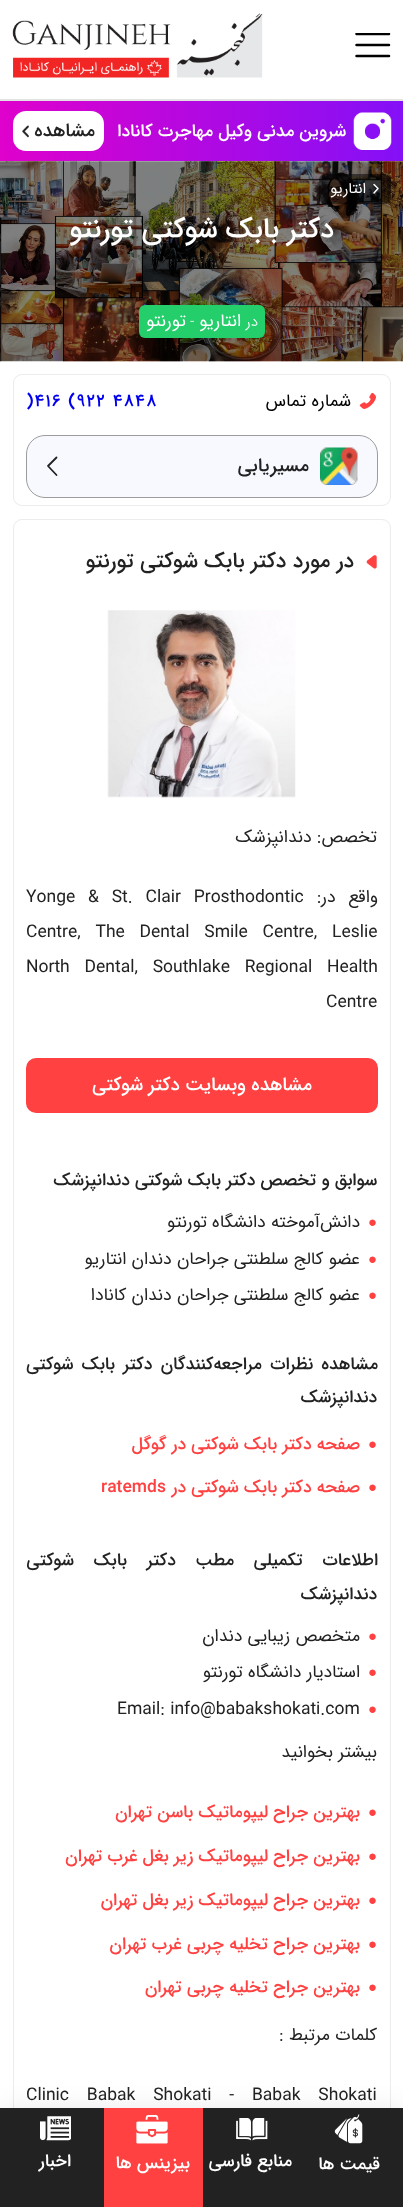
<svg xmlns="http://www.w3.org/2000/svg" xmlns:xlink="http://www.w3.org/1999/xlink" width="403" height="2207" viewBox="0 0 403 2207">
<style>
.cls-1{font:500 17.5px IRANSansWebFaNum;direction:rtl;fill:#ffffff}
.cls-2{font:500 18.75px IRANSansWebFaNum;direction:rtl;fill:#222222}
.cls-3{font:15px IRANSansWebFaNum;direction:rtl;fill:#ffffff}
.cls-4{font:500 28px IRANSansWebFaNum;direction:rtl;fill:#ffffff}
.cls-5{font:300 15px IRANSansWebFaNum;direction:rtl;fill:#ffffff}
.cls-6{font:17.5px IRANSansWebFaNum;direction:rtl;fill:#ffffff}
.cls-7{font:300 15px IRANSansWebFaNum;fill:#ffffff}
.cls-8{font:17.5px IRANSansWebFaNum;direction:rtl;fill:#000000}
.cls-9{font:500 17.5px IRANSansWebFaNum;letter-spacing:1.25px;fill:#0000ee}
.cls-10{font:500 21.25px IRANSansWebFaNum;direction:rtl;fill:#222222}
.cls-11{font:17.5px IRANSansWebFaNum;direction:rtl;fill:#222222}
.cls-12{font:17.5px IRANSansWebFaNum;fill:#222222}
.cls-13{font:500 18.75px IRANSansWebFaNum;direction:rtl;fill:#ffffff}
.cls-14{font:500 17.5px IRANSansWebFaNum;direction:rtl;fill:#222222}
.cls-15{font:15px Liberation Serif;fill:#ff4141}
.cls-16{font:500 17.5px IRANSansWebFaNum;direction:rtl;fill:#ff4141}
.cls-17{font:500 17.5px IRANSansWebFaNum;fill:#ff4141}
</style>
<defs>
<clipPath id="clip1"><rect x="355" y="33" width="36" height="25"/></clipPath>
<linearGradient id="g1" gradientUnits="userSpaceOnUse" x1="0" y1="131" x2="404" y2="131"><stop offset="0" stop-color="#df01cc"/><stop offset="1" stop-color="#8410f7"/></linearGradient>
</defs>
<rect width="100%" height="100%" fill="#ffffff"/>
<rect fill="#e2e2e2" x="0" y="99" width="403" height="2"/>
<g clip-path="url(#clip1)">
<path fill="none" stroke="#000000" stroke-width="2.5" stroke-linecap="round" stroke-linejoin="round" d="M356.5 34H389"/>
</g>
<path fill="none" stroke="#000000" stroke-width="2.5" stroke-linecap="round" stroke-linejoin="round" d="M356.5 45H389"/>
<path fill="none" stroke="#000000" stroke-width="2.5" stroke-linecap="round" stroke-linejoin="round" d="M356.5 56H389"/>
<image xlink:href="image0.png" x="12" y="13" width="251" height="65"/>
<rect fill="url(#g1)" x="0" y="101" width="403" height="60"/>
<image xlink:href="image1.png" x="353" y="112" width="39" height="38"/>
<rect fill="#ffffff" x="13" y="111" width="91" height="40" rx="13"/>
<image xlink:href="image2.png" x="22" y="125" width="7" height="13"/>
<image xlink:href="image3.png" x="0" y="161" width="403" height="201"/>
<rect fill="#000000" fill-opacity="0.5" x="319" y="174" width="72" height="30" rx="6"/>
<path fill="none" stroke="#ffffff" stroke-width="1.5" stroke-linecap="round" stroke-linejoin="round" d="M374 184.5L378 188.5L374 193"/>
<rect fill="#23ce6b" x="139" y="305" width="126" height="33" rx="6"/>
<rect fill="none" stroke="#ececec" x="13.5" y="374.5" width="377" height="131" rx="8.5"/>
<image xlink:href="image4.png" x="359" y="393" width="18" height="16"/>
<rect fill="#f8f9ff" stroke="#9c9c9c" x="26.5" y="435.5" width="351" height="62" rx="18.5"/>
<image xlink:href="image5.png" x="320" y="447" width="38" height="38"/>
<path fill="none" stroke="#222222" stroke-width="1.8" stroke-linecap="round" stroke-linejoin="round" d="M56.5 475L48 466L56.5 457.5"/>
<rect fill="none" stroke="#ececec" x="13.5" y="519.5" width="377" height="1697" rx="8.5"/>
<image xlink:href="image6.png" x="366" y="555" width="11" height="14"/>
<image xlink:href="image7.png" x="107" y="610" width="189" height="188"/>
<rect fill="#ff4141" x="26" y="1058" width="352" height="55" rx="10"/>
<rect fill="#000000" fill-opacity="0.08" filter="blur(12.5px)" x="0" y="2108" width="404" height="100"/>
<rect fill="#222222" x="0" y="2108" width="403" height="99"/>
<image xlink:href="image8.png" x="334" y="2114" width="29" height="30"/>
<image xlink:href="image9.png" x="236" y="2118" width="32" height="23"/>
<rect fill="#ff4141" x="104" y="2108" width="99" height="99"/>
<image xlink:href="image10.png" x="136" y="2115" width="32" height="29"/>
<image xlink:href="image11.png" x="40" y="2116" width="31" height="25"/>
<text class="cls-1" x="346" y="136">شروین مدنی وکیل مهاجرت کانادا</text>
<text class="cls-2" x="95" y="136">مشاهده</text>
<text class="cls-3" x="366" y="193">انتاریو</text>
<text class="cls-4" x="334" y="237">دکتر بابک شوکتی تورنتو</text>
<text class="cls-5" x="258" y="326">در</text>
<text class="cls-6" x="241" y="326">انتاریو</text>
<text class="cls-7" x="190" y="326">-</text>
<text class="cls-6" x="186" y="326">تورنتو</text>
<text class="cls-8" x="351" y="406">شماره تماس</text>
<text class="cls-9" x="113" y="406">4848</text>
<text class="cls-9" x="26" y="406">)416 (922</text>
<text class="cls-2" x="309" y="471">مسیریابی</text>
<text class="cls-10" x="354" y="567">در مورد دکتر بابک شوکتی تورنتو</text>
<text class="cls-11" x="377" y="842">تخصص: دندانپزشک</text>
<text class="cls-11" x="378" y="902" word-spacing="7.5">واقع در:</text>
<text class="cls-12" x="26" y="902" word-spacing="7.5">Yonge &amp; St. Clair Prosthodontic</text>
<text class="cls-12" x="26" y="937" word-spacing="9.5">Centre, The Dental Smile Centre, Leslie</text>
<text class="cls-12" x="26" y="972" word-spacing="9.5">North Dental, Southlake Regional Health</text>
<text class="cls-12" x="326" y="1007">Centre</text>
<text class="cls-13" x="312" y="1090">مشاهده وبسایت دکتر شوکتی</text>
<text class="cls-14" x="377" y="1185">سوابق و تخصص دکتر بابک شوکتی دندانپزشک</text>
<text class="cls-15" x="368" y="1227">●</text>
<text class="cls-11" x="360" y="1227">دانش‌آموخته دانشگاه تورنتو</text>
<text class="cls-15" x="368" y="1264">●</text>
<text class="cls-11" x="360" y="1264">عضو کالج سلطنتی جراحان دندان انتاریو</text>
<text class="cls-15" x="368" y="1300">●</text>
<text class="cls-11" x="360" y="1300">عضو کالج سلطنتی جراحان دندان کانادا</text>
<text class="cls-14" x="378" y="1369" word-spacing="3">مشاهده نظرات مراجعه‌کنندگان دکتر بابک شوکتی</text>
<text class="cls-14" x="377" y="1402">دندانپزشک</text>
<text class="cls-15" x="368" y="1449">●</text>
<text class="cls-16" x="360" y="1449">صفحه دکتر بابک شوکتی در گوگل</text>
<text class="cls-15" x="368" y="1492">●</text>
<text class="cls-16" x="360" y="1492">صفحه دکتر بابک شوکتی در</text>
<text class="cls-17" x="101" y="1492">ratemds</text>
<text class="cls-14" x="378" y="1565" word-spacing="14.5">اطلاعات تکمیلی مطب دکتر</text>
<text class="cls-14" x="127" y="1565" word-spacing="14.5">بابک شوکتی</text>
<text class="cls-14" x="377" y="1599">دندانپزشک</text>
<text class="cls-15" x="368" y="1641">●</text>
<text class="cls-11" x="360" y="1641">متخصص زیبایی دندان</text>
<text class="cls-15" x="368" y="1677">●</text>
<text class="cls-11" x="360" y="1677">استادیار دانشگاه تورنتو</text>
<text class="cls-15" x="368" y="1714">●</text>
<text class="cls-12" x="117" y="1714">Email: info@babakshokati.com</text>
<text class="cls-11" x="377" y="1757">بیشتر بخوانید</text>
<text class="cls-15" x="368" y="1817">●</text>
<text class="cls-16" x="360" y="1817">بهترین جراح لیپوماتیک باسن تهران</text>
<text class="cls-15" x="368" y="1861">●</text>
<text class="cls-16" x="360" y="1861">بهترین جراح لیپوماتیک زیر بغل غرب تهران</text>
<text class="cls-15" x="368" y="1905">●</text>
<text class="cls-16" x="360" y="1905">بهترین جراح لیپوماتیک زیر بغل تهران</text>
<text class="cls-15" x="368" y="1949">●</text>
<text class="cls-16" x="360" y="1949">بهترین جراح تخلیه چربی غرب تهران</text>
<text class="cls-15" x="368" y="1992">●</text>
<text class="cls-16" x="360" y="1992">بهترین جراح تخلیه چربی تهران</text>
<text class="cls-11" x="377" y="2040">کلمات مرتبط :</text>
<text class="cls-12" x="26" y="2100" word-spacing="12.5">Clinic Babak Shokati - Babak Shokati</text>
<text class="cls-1" x="380" y="2169">قیمت ها</text>
<text class="cls-1" x="292" y="2166">منابع فارسی</text>
<text class="cls-1" x="190" y="2168">بیزینس ها</text>
<text class="cls-1" x="71" y="2166">اخبار</text>
</svg>
